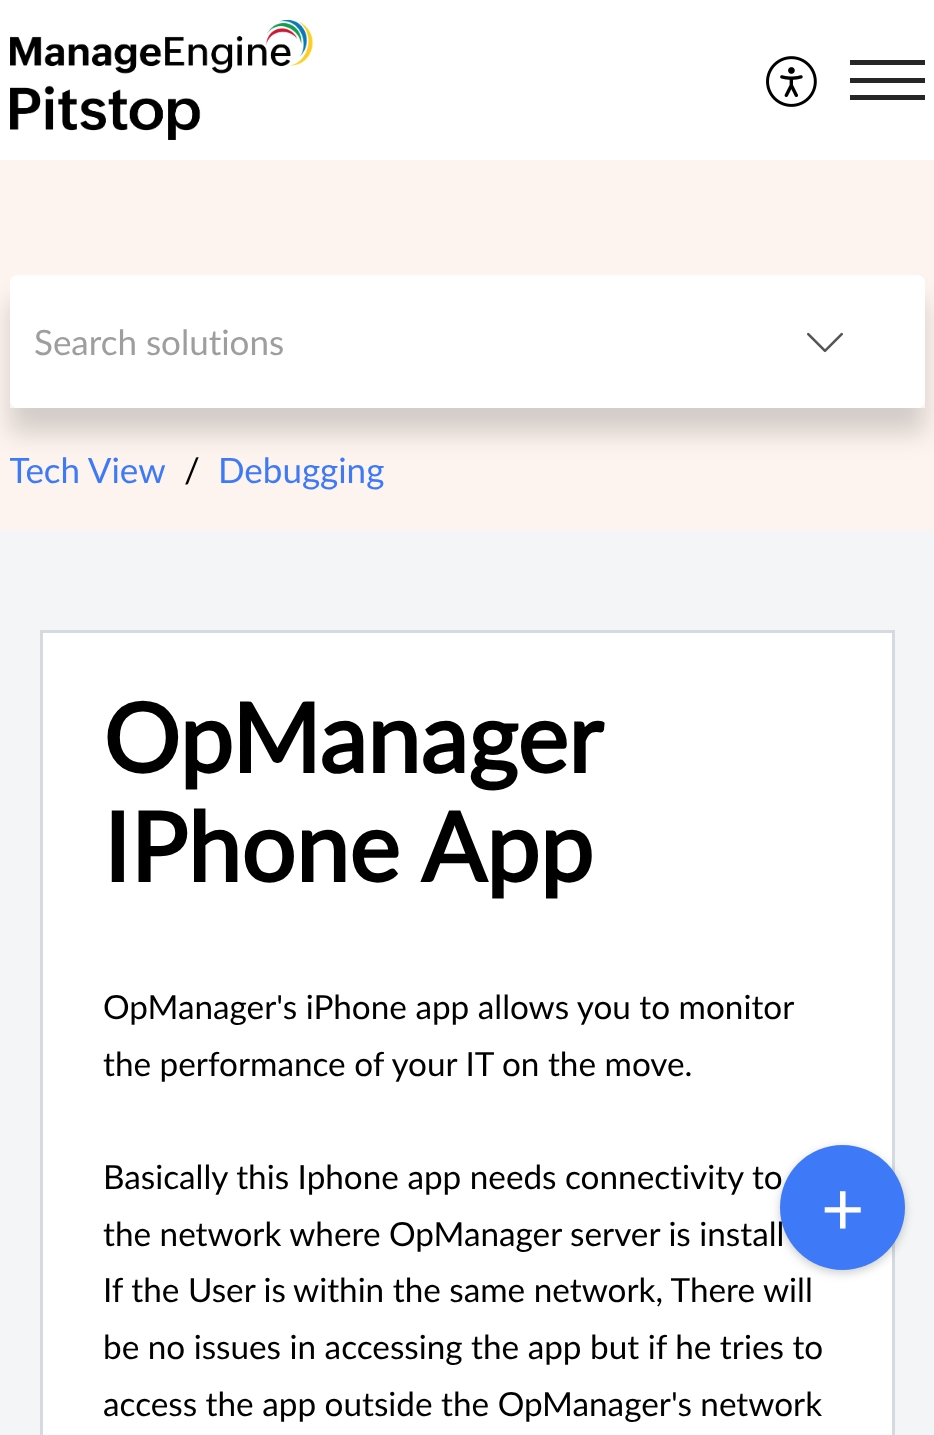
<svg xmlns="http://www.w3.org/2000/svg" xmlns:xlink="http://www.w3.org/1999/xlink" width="934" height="1435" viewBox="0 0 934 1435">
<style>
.cls-1{font:35px Lato;fill:#9e9e9e}
.cls-2{font:35px Lato;fill:#3e7af7}
.cls-3{font:35px Lato;fill:#000000}
.cls-4{font:bold 96px Lato;fill:#000000}
.cls-5{font:33.3px Lato;fill:#000000}
.cls-6{font:75px Lato;fill:#ffffff}
</style>
<defs>
<clipPath id="clip1"><path d="M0 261H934V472H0ZM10 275H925V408H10Z" clip-rule="evenodd"/></clipPath>
<clipPath id="clip2"><rect x="10" y="445" width="155" height="48"/></clipPath>
</defs>
<rect width="100%" height="100%" fill="#f3f5f7"/>
<rect fill="#ffffff" x="0" y="0" width="934" height="160"/>
<image xlink:href="image0.png" x="10" y="20" width="303" height="120"/>
<image xlink:href="image1.png" x="766" y="56" width="51" height="51"/>
<rect fill="#262626" x="850" y="78" width="75" height="5"/>
<rect fill="#262626" x="850" y="60" width="75" height="5"/>
<rect fill="#262626" x="850" y="95" width="75" height="5"/>
<rect fill="#fdf4ef" x="0" y="160" width="934" height="370"/>
<g clip-path="url(#clip1)">
<rect fill="#000000" fill-opacity="0.16" filter="blur(12.5px)" x="10" y="300" width="915" height="133"/>
</g>
<rect fill="#ffffff" x="10" y="275" width="915" height="133" rx="8"/>
<rect fill="#ffffff" x="10" y="275" width="715" height="133" rx="8"/>
<path fill="#ffffff" fill-opacity="0.5" d="M725 275H917C921.5 275 925 278.5 925 283V400C925 404.5 921.5 408 917 408H725Z"/>
<image xlink:href="image2.png" x="807" y="332" width="36" height="21"/>
<rect fill="#ffffff" stroke="#d4dadf" stroke-width="3" x="41.5" y="631.5" width="852" height="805"/>
<rect fill="#000000" fill-opacity="0.2" filter="blur(5px)" x="780" y="1148" width="125" height="125" rx="62.5"/>
<text class="cls-1" x="34" y="355">Search solutions</text>
<g clip-path="url(#clip2)">
<text class="cls-2" x="9" y="483">Tech View</text>
</g>
<text class="cls-3" x="184" y="483">/</text>
<text class="cls-2" x="218" y="483">Debugging</text>
<text class="cls-4"><tspan x="103" y="773">OpManager</tspan><tspan x="103" y="882">IPhone App</tspan></text>
<text class="cls-5"><tspan x="103" y="1019">OpManager's iPhone app allows you to monitor</tspan><tspan x="103" y="1076">the performance of your IT on the move.</tspan></text>
<text class="cls-5"><tspan x="103" y="1189">Basically this Iphone app needs connectivity to</tspan><tspan x="103" y="1246">the network where OpManager server is install</tspan></text>
<circle fill="#3e7af7" cx="842.5" cy="1207.5" r="62.5"/>
<text class="cls-6" x="821" y="1235">+</text>
<text class="cls-5" x="103" y="1302">If the User is</text>
<text class="cls-5" x="293" y="1302">within the same network, There will</text>
<text class="cls-5"><tspan x="103" y="1359">be no issues in accessing the app but if he tries to</tspan><tspan x="103" y="1416">access the app outside the OpManager's network</tspan></text>
</svg>
